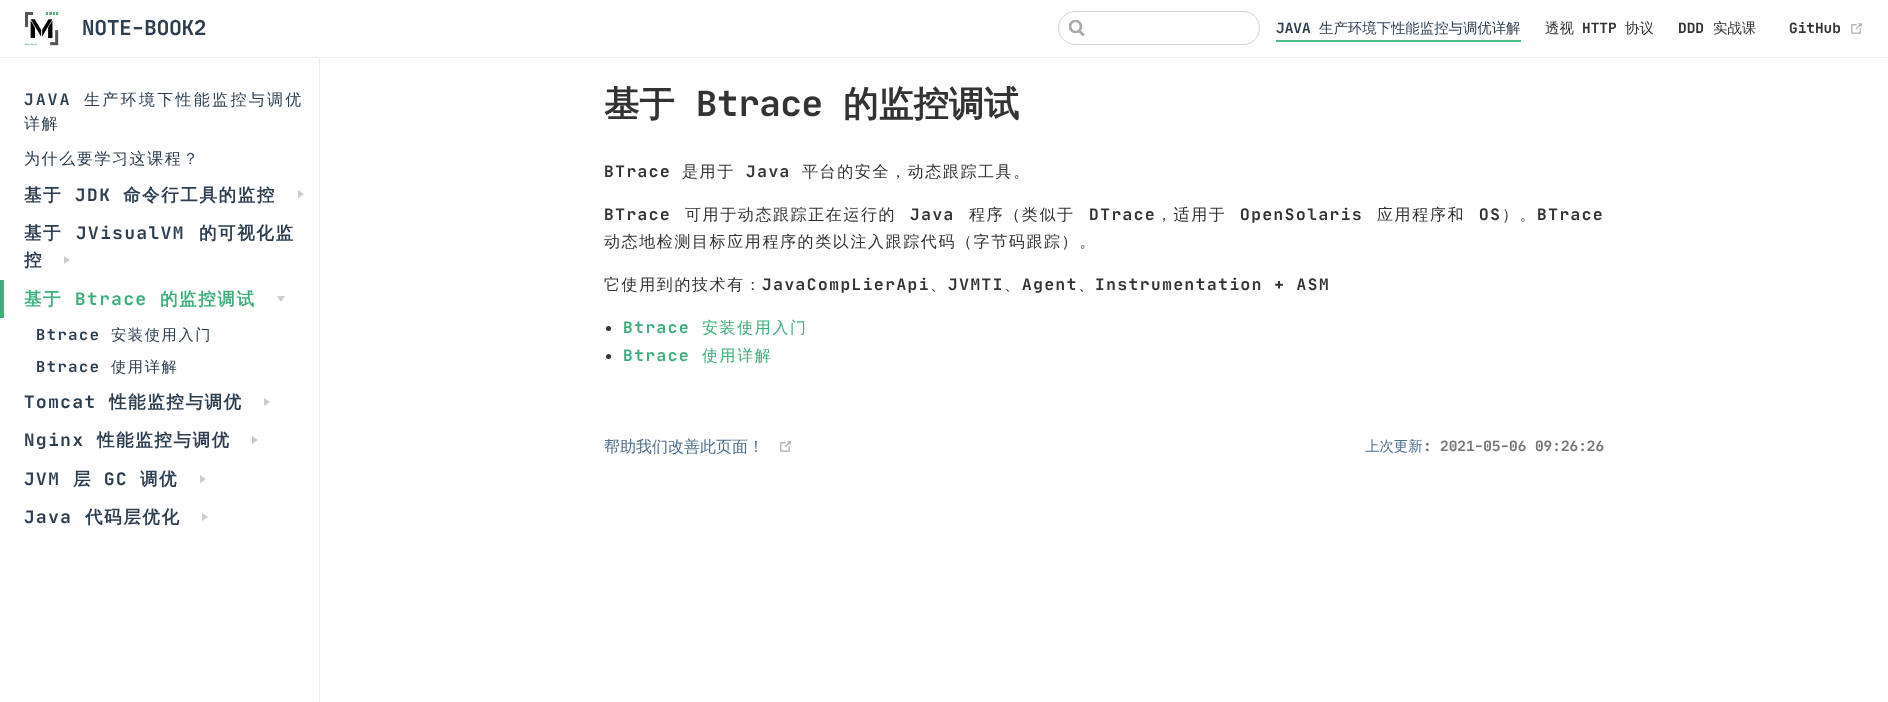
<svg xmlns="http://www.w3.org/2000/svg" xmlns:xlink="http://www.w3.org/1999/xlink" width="1888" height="702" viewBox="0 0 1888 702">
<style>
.cls-1{font:bold 20.75px JetBrains Mono;fill:#2c3e50}
.cls-2{font:bold 14.4px JetBrains Mono;fill:#2c3e50}
.cls-3{font:500 14.4px WenQuanYi Zen Hei;fill:#2c3e50}
.cls-4{font:500 14.4px WenQuanYi Zen Hei;fill:#333333}
.cls-5{font:bold 14.4px JetBrains Mono;fill:#333333}
.cls-6{font:bold 16px JetBrains Mono;letter-spacing:2.3px;fill:#2c3e50}
.cls-7{font:500 16px WenQuanYi Zen Hei;letter-spacing:2.3px;fill:#2c3e50}
.cls-8{font:500 16px WenQuanYi Zen Hei;letter-spacing:1.6px;fill:#2c3e50}
.cls-9{font:bold 17.5px WenQuanYi Zen Hei;letter-spacing:1.6px;fill:#2c3e50}
.cls-10{font:bold 17.5px JetBrains Mono;letter-spacing:1.6px;fill:#2c3e50}
.cls-11{font:bold 17.5px WenQuanYi Zen Hei;letter-spacing:1.6px;fill:#3eaf7c}
.cls-12{font:bold 17.5px JetBrains Mono;letter-spacing:1.6px;fill:#3eaf7c}
.cls-13{font:bold 15.25px JetBrains Mono;letter-spacing:1.6px;fill:#2c3e50}
.cls-14{font:500 15.25px WenQuanYi Zen Hei;letter-spacing:1.6px;fill:#2c3e50}
.cls-15{font:bold 35.25px WenQuanYi Zen Hei;fill:#333333}
.cls-16{font:bold 35.25px JetBrains Mono;fill:#333333}
.cls-17{font:bold 16px JetBrains Mono;letter-spacing:1.6px;fill:#333333}
.cls-18{font:500 16px WenQuanYi Zen Hei;letter-spacing:1.6px;fill:#333333}
.cls-19{font:bold 16px JetBrains Mono;letter-spacing:1.6px;fill:#3eaf7c}
.cls-20{font:500 16px WenQuanYi Zen Hei;letter-spacing:1.6px;fill:#3eaf7c}
.cls-21{font:500 16px WenQuanYi Zen Hei;fill:#4e6e8e}
.cls-22{font:500 14.4px WenQuanYi Zen Hei;fill:#4e6e8e}
.cls-23{font:bold 14.4px JetBrains Mono;fill:#4e6e8e}
.cls-24{font:bold 14.4px JetBrains Mono;fill:#767676}
</style>
<defs>
<clipPath id="clip1"><rect x="1069" y="20" width="16" height="18"/></clipPath>
</defs>
<rect width="100%" height="100%" fill="#ffffff"/>
<rect fill="#eaecef" x="0" y="57" width="1888" height="1"/>
<image xlink:href="image0.png" x="25" y="12" width="34" height="34"/>
<path fill="none" stroke="#aaaaaa" stroke-width="2.7" d="M1084 35.5L1078.5 30.5"/>
<g clip-path="url(#clip1)">
<circle fill="none" stroke="#aaaaaa" stroke-width="2.7" cx="1075.5" cy="26.5" r="5.5"/>
</g>
<rect fill="none" stroke="#cfd4db" x="1058.5" y="11.5" width="201" height="33" rx="16.5"/>
<rect fill="#46bd87" x="1276" y="40" width="245" height="2"/>
<image xlink:href="image1.png" x="1851" y="23" width="11" height="11"/>
<rect fill="#eaecef" x="319" y="58" width="1" height="644"/>
<path fill="#cccccc" d="M298 198V190L304 194Z"/>
<path fill="#cccccc" d="M64 264V256L70 260Z"/>
<rect fill="#3eaf7c" x="0" y="280" width="4" height="38"/>
<path fill="#cccccc" d="M277 296H285L281 302Z"/>
<path fill="#cccccc" d="M264 406V398L270 402ZM252 444V436L258 440Z"/>
<path fill="#cccccc" d="M200 483V475L206 479ZM202 521V513L208 517Z"/>
<circle fill="#333333" cx="608.5" cy="328.5" r="2.5"/>
<circle fill="#333333" cx="608.5" cy="356.5" r="2.5"/>
<image xlink:href="image1.png" x="780" y="441" width="11" height="11"/>
<text class="cls-1" x="82" y="35">NOTE-BOOK2</text>
<text class="cls-2" x="1276" y="33">JAVA</text>
<text class="cls-3" x="1319" y="33">生产环境下性能监控与调优详解</text>
<text class="cls-4" x="1545" y="33">透视</text>
<text class="cls-5" x="1582" y="33">HTTP</text>
<text class="cls-4" x="1625" y="33">协议</text>
<text class="cls-5" x="1678" y="33">DDD</text>
<text class="cls-4" x="1713" y="33">实战课</text>
<text class="cls-5" x="1789" y="33">GitHub</text>
<text class="cls-6" x="24" y="105">JAVA</text>
<text class="cls-7" x="84" y="105">生产环境下性能监控与调优</text>
<text class="cls-8" x="24" y="129">详解</text>
<text class="cls-8" x="24" y="164">为什么要学习这课程？</text>
<text class="cls-9" x="24" y="201">基于</text>
<text class="cls-10" x="75" y="201">JDK</text>
<text class="cls-9" x="123" y="201">命令行工具的监控</text>
<text class="cls-9" x="24" y="239">基于</text>
<text class="cls-10" x="76" y="239">JVisualVM</text>
<text class="cls-9" x="199" y="239">的可视化监</text>
<text class="cls-9" x="24" y="266">控</text>
<text class="cls-11" x="24" y="305">基于</text>
<text class="cls-12" x="75" y="305">Btrace</text>
<text class="cls-11" x="160" y="305">的监控调试</text>
<text class="cls-13" x="36" y="340">Btrace</text>
<text class="cls-14" x="111" y="340">安装使用入门</text>
<text class="cls-13" x="36" y="372">Btrace</text>
<text class="cls-14" x="111" y="372">使用详解</text>
<text class="cls-10" x="24" y="408">Tomcat</text>
<text class="cls-9" x="109" y="408">性能监控与调优</text>
<text class="cls-10" x="24" y="446">Nginx</text>
<text class="cls-9" x="97" y="446">性能监控与调优</text>
<text class="cls-10" x="24" y="485">JVM</text>
<text class="cls-9" x="73" y="485">层</text>
<text class="cls-10" x="104" y="485">GC</text>
<text class="cls-9" x="140" y="485">调优</text>
<text class="cls-10" x="24" y="523">Java</text>
<text class="cls-9" x="85" y="523">代码层优化</text>
<text class="cls-15" x="604" y="116">基于</text>
<text class="cls-16" x="696" y="116">Btrace</text>
<text class="cls-15" x="843" y="116">的监控调试</text>
<text class="cls-17" x="604" y="177">BTrace</text>
<text class="cls-18" x="682" y="177">是用于</text>
<text class="cls-17" x="746" y="177">Java</text>
<text class="cls-18" x="802" y="177">平台的安全，动态跟踪工具。</text>
<text class="cls-17" x="604" y="220">BTrace</text>
<text class="cls-18" x="685" y="220">可用于动态跟踪正在运行的</text>
<text class="cls-17" x="910" y="220">Java</text>
<text class="cls-18" x="969" y="220">程序（类似于</text>
<text class="cls-17" x="1089" y="220">DTrace</text>
<text class="cls-18" x="1156" y="220">，适用于</text>
<text class="cls-17" x="1240" y="220">OpenSolaris</text>
<text class="cls-18" x="1377" y="220">应用程序和</text>
<text class="cls-17" x="1479" y="220">OS</text>
<text class="cls-18" x="1502" y="220">）。</text>
<text class="cls-17" x="1537" y="220">BTrace</text>
<text class="cls-18" x="604" y="247">动态地检测目标应用程序的类以注入跟踪代码（字节码跟踪）。</text>
<text class="cls-18" x="604" y="290">它使用到的技术有：</text>
<text class="cls-17" x="762" y="290">JavaCompLierApi</text>
<text class="cls-18" x="930" y="290">、</text>
<text class="cls-17" x="948" y="290">JVMTI</text>
<text class="cls-18" x="1004" y="290">、</text>
<text class="cls-17" x="1022" y="290">Agent</text>
<text class="cls-18" x="1078" y="290">、</text>
<text class="cls-17" x="1095" y="290">Instrumentation + ASM</text>
<text class="cls-19" x="623" y="333">Btrace</text>
<text class="cls-20" x="702" y="333">安装使用入门</text>
<text class="cls-19" x="623" y="361">Btrace</text>
<text class="cls-20" x="702" y="361">使用详解</text>
<text class="cls-21" x="604" y="452">帮助我们改善此页面！</text>
<text class="cls-22" x="1365" y="451">上次更新</text>
<text class="cls-23" x="1423" y="451">:</text>
<text class="cls-24" x="1440" y="451">2021-05-06 09:26:26</text>
</svg>
